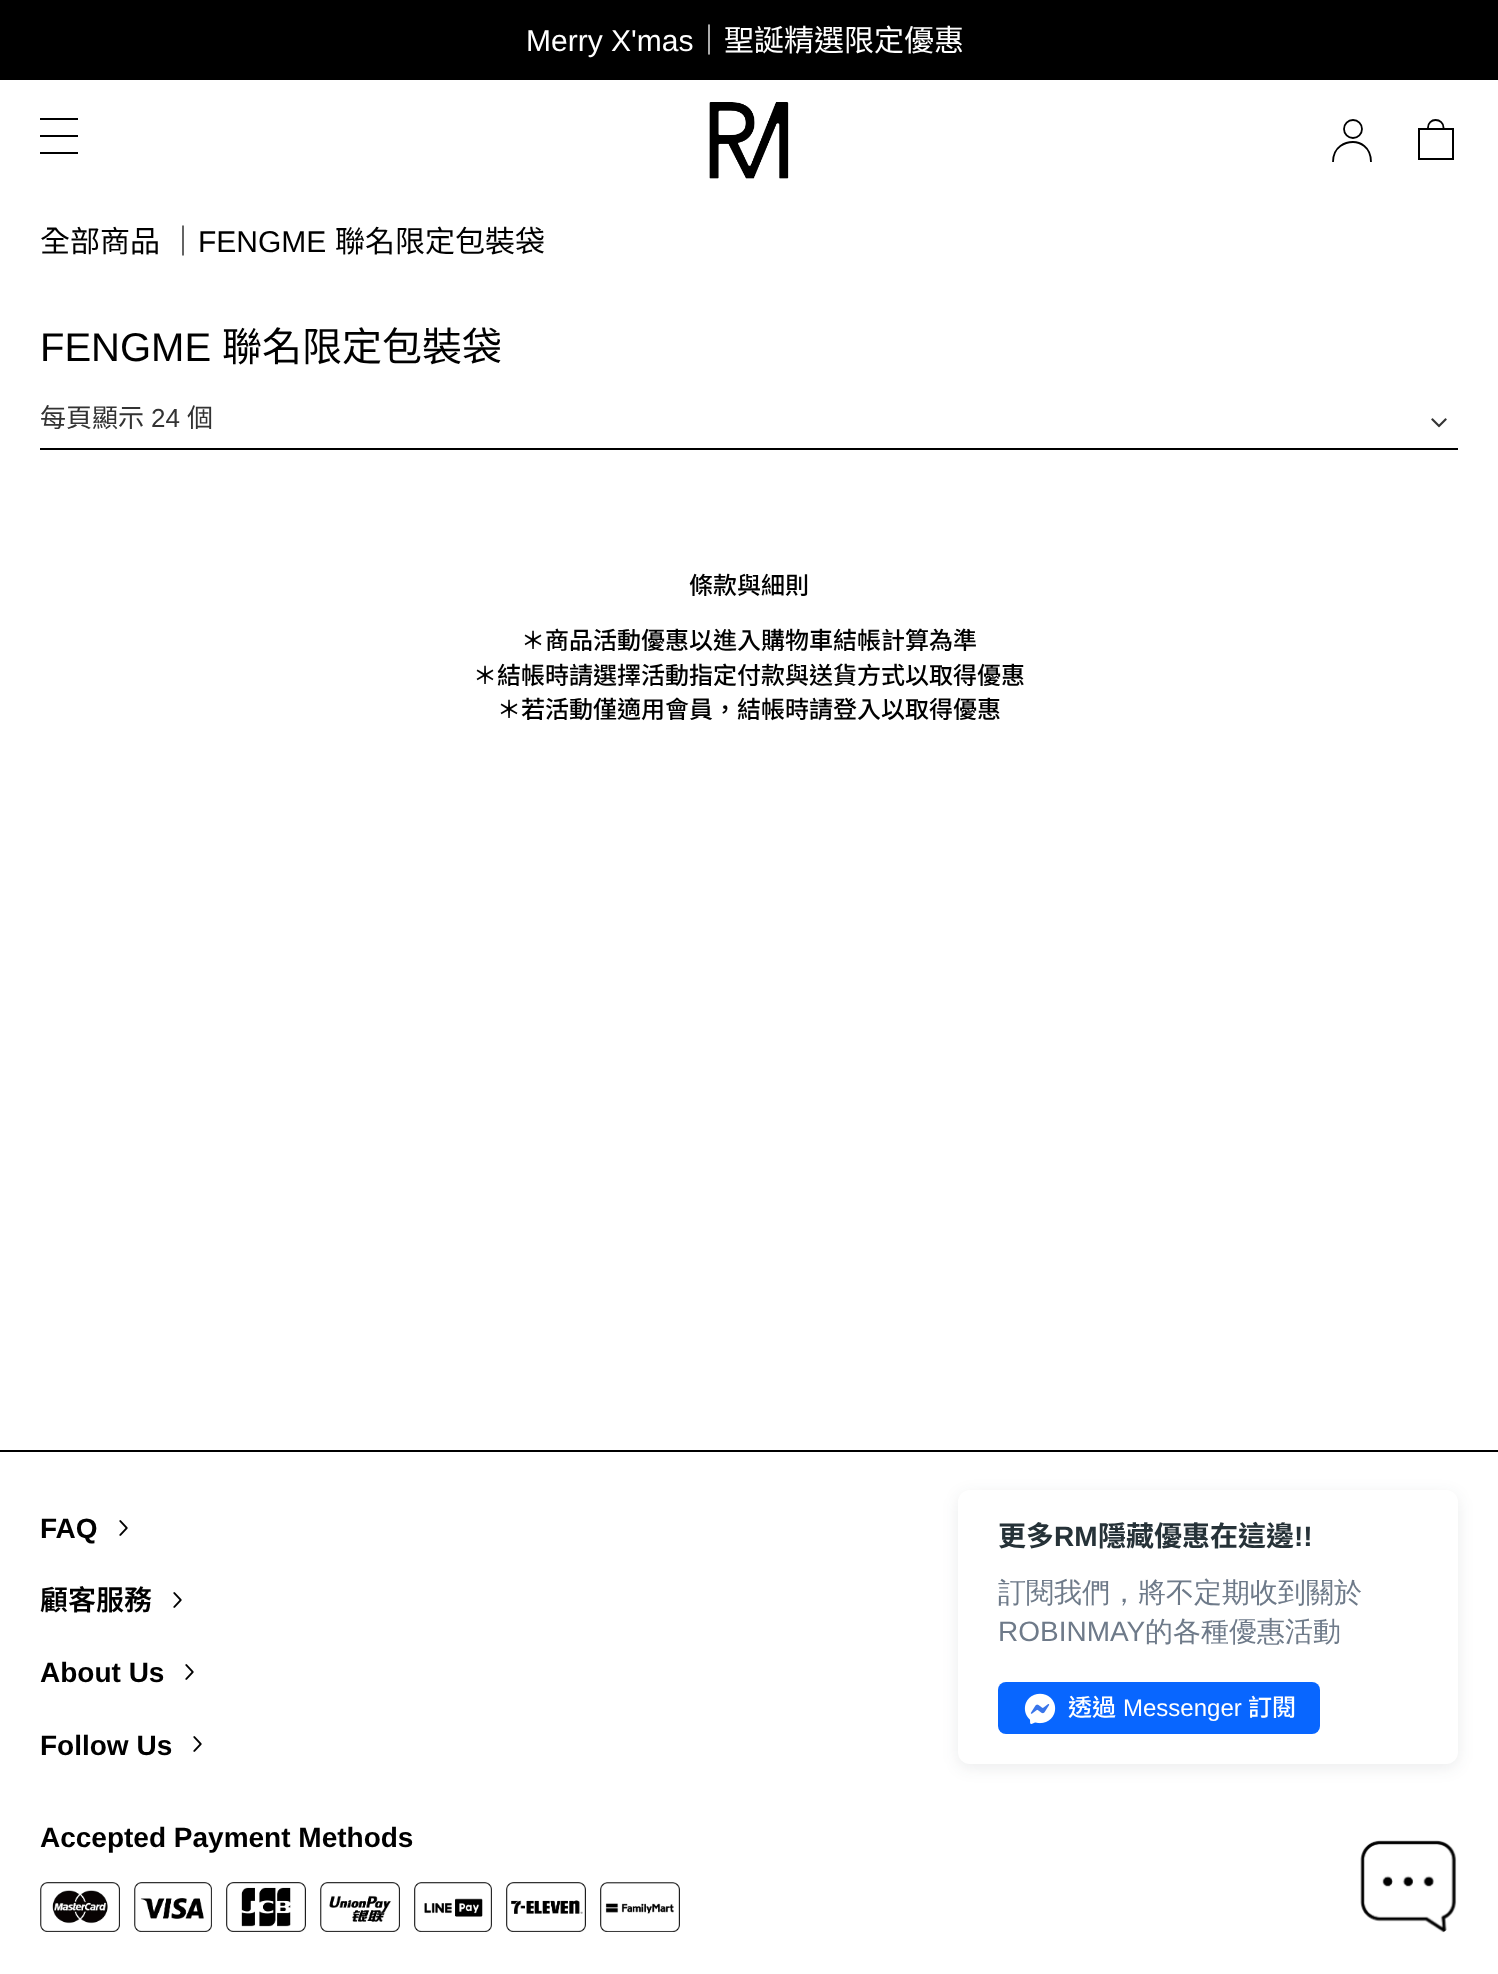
<svg xmlns="http://www.w3.org/2000/svg" xmlns:xlink="http://www.w3.org/1999/xlink" width="1498" height="1974" viewBox="0 0 1498 1974">
<style>
.cls-1{font:30px Liberation Sans;fill:#ffffff}
.cls-2{font:30px Noto Sans TC;fill:#ffffff}
.cls-3{font:30px Noto Sans TC;fill:#000000}
.cls-4{font:30px Liberation Sans;fill:#000000}
.cls-5{font:40px Liberation Sans;fill:#000000}
.cls-6{font:40px Noto Sans TC;fill:#000000}
.cls-7{font:26px Noto Sans TC;fill:#333333}
.cls-8{font:26px Liberation Sans;fill:#333333}
.cls-9{font:500 24px Noto Sans TC;fill:#000000}
.cls-10{font:bold 28px Liberation Sans;fill:#000000}
.cls-11{font:600 28px Noto Sans TC;fill:#000000}
.cls-12{font:bold 28px Noto Sans TC;fill:#263238}
.cls-13{font:bold 28px Liberation Sans;fill:#263238}
.cls-14{font:500 28px WenQuanYi Zen Hei;fill:#6e7a89}
.cls-15{font:28px Liberation Sans;fill:#6e7a89}
.cls-16{font:500 24px Noto Sans TC;fill:#ffffff}
.cls-17{font:24px Liberation Sans;fill:#ffffff}
</style>
<rect width="100%" height="100%" fill="#ffffff"/>
<rect fill="#000000" x="0" y="0" width="1498" height="80"/>
<rect fill="#000000" x="40" y="118" width="38" height="2"/>
<rect fill="#000000" x="40" y="135" width="38" height="2"/>
<rect fill="#000000" x="40" y="152" width="38" height="2"/>
<image xlink:href="image0.png" x="709" y="102" width="80" height="77"/>
<circle fill="none" stroke="#000000" stroke-width="1.8" cx="1353" cy="129" r="9"/>
<path fill="none" stroke="#000000" stroke-width="1.8" d="M1353 142C1346 142 1333 146 1333 162M1353 142C1359 142 1371 146 1371 162"/>
<rect fill="none" stroke="#000000" stroke-width="2" x="1419" y="129" width="34" height="30"/>
<path fill="none" stroke="#000000" stroke-width="1.8" d="M1428 129.5V127.5C1428 123 1431.5 120 1435.5 120C1440 120 1443.5 123 1443.5 127.5V129.5"/>
<rect fill="#000000" x="40" y="448" width="1418" height="2"/>
<image xlink:href="image1.png" x="1431" y="418" width="16" height="10"/>
<rect fill="#000000" x="0" y="1450" width="1498" height="2"/>
<image xlink:href="image2.png" x="119" y="1520" width="9" height="16"/>
<image xlink:href="image2.png" x="173" y="1592" width="9" height="16"/>
<image xlink:href="image2.png" x="185" y="1664" width="9" height="16"/>
<image xlink:href="image2.png" x="193" y="1736" width="9" height="16"/>
<image xlink:href="image3.png" x="40" y="1882" width="80" height="50"/>
<image xlink:href="image4.png" x="134" y="1882" width="78" height="50"/>
<image xlink:href="image5.png" x="226" y="1882" width="80" height="50"/>
<image xlink:href="image6.png" x="320" y="1882" width="80" height="50"/>
<image xlink:href="image7.png" x="414" y="1882" width="78" height="50"/>
<image xlink:href="image8.png" x="506" y="1882" width="80" height="50"/>
<image xlink:href="image9.png" x="600" y="1882" width="80" height="50"/>
<rect fill="#232f35" fill-opacity="0.09" filter="blur(8px)" x="958" y="1494" width="500" height="274" rx="12"/>
<rect fill="#ffffff" x="958" y="1490" width="500" height="274" rx="12"/>
<rect fill="#0866ff" x="998" y="1682" width="322" height="52" rx="8"/>
<image xlink:href="image10.png" x="1024" y="1693" width="32" height="31"/>
<image xlink:href="image11.png" x="1360" y="1840" width="97" height="93"/>
<text class="cls-1" x="526" y="51">Merry X'mas</text>
<text class="cls-2" x="694" y="51">｜聖誕精選限定優惠</text>
<text class="cls-3" x="40" y="252">全部商品</text>
<text class="cls-3" x="168" y="252">｜</text>
<text class="cls-4" x="198" y="252">FENGME</text>
<text class="cls-3" x="335" y="252">聯名限定包裝袋</text>
<text class="cls-5" x="40" y="361">FENGME</text>
<text class="cls-6" x="222" y="361">聯名限定包裝袋</text>
<text class="cls-7" x="40" y="427">每頁顯示</text>
<text class="cls-8" x="151" y="427">24</text>
<text class="cls-7" x="187" y="427">個</text>
<text class="cls-9" x="689" y="594">條款與細則</text>
<text class="cls-9" x="521" y="649">＊商品活動優惠以進入購物車結帳計算為準</text>
<text class="cls-9" x="473" y="684">＊結帳時請選擇活動指定付款與送貨方式以取得優惠</text>
<text class="cls-9" x="497" y="718">＊若活動僅適用會員，結帳時請登入以取得優惠</text>
<text class="cls-10" x="40" y="1538">FAQ</text>
<text class="cls-11" x="40" y="1610">顧客服務</text>
<text class="cls-10" x="40" y="1682">About Us</text>
<text class="cls-10" x="40" y="1755">Follow Us</text>
<text class="cls-10" x="40" y="1847">Accepted Payment Methods</text>
<text class="cls-12" x="998" y="1546">更多</text>
<text class="cls-13" x="1054" y="1546">RM</text>
<text class="cls-12" x="1098" y="1546">隱藏優惠在這邊</text>
<text class="cls-13" x="1294" y="1546">!!</text>
<text class="cls-14" x="998" y="1602">訂閱我們，將不定期收到關於</text>
<text class="cls-15" x="998" y="1641">ROBINMAY</text>
<text class="cls-14" x="1145" y="1641">的各種優惠活動</text>
<text class="cls-16" x="1068" y="1716">透過</text>
<text class="cls-17" x="1123" y="1716">Messenger</text>
<text class="cls-16" x="1248" y="1716">訂閱</text>
</svg>
